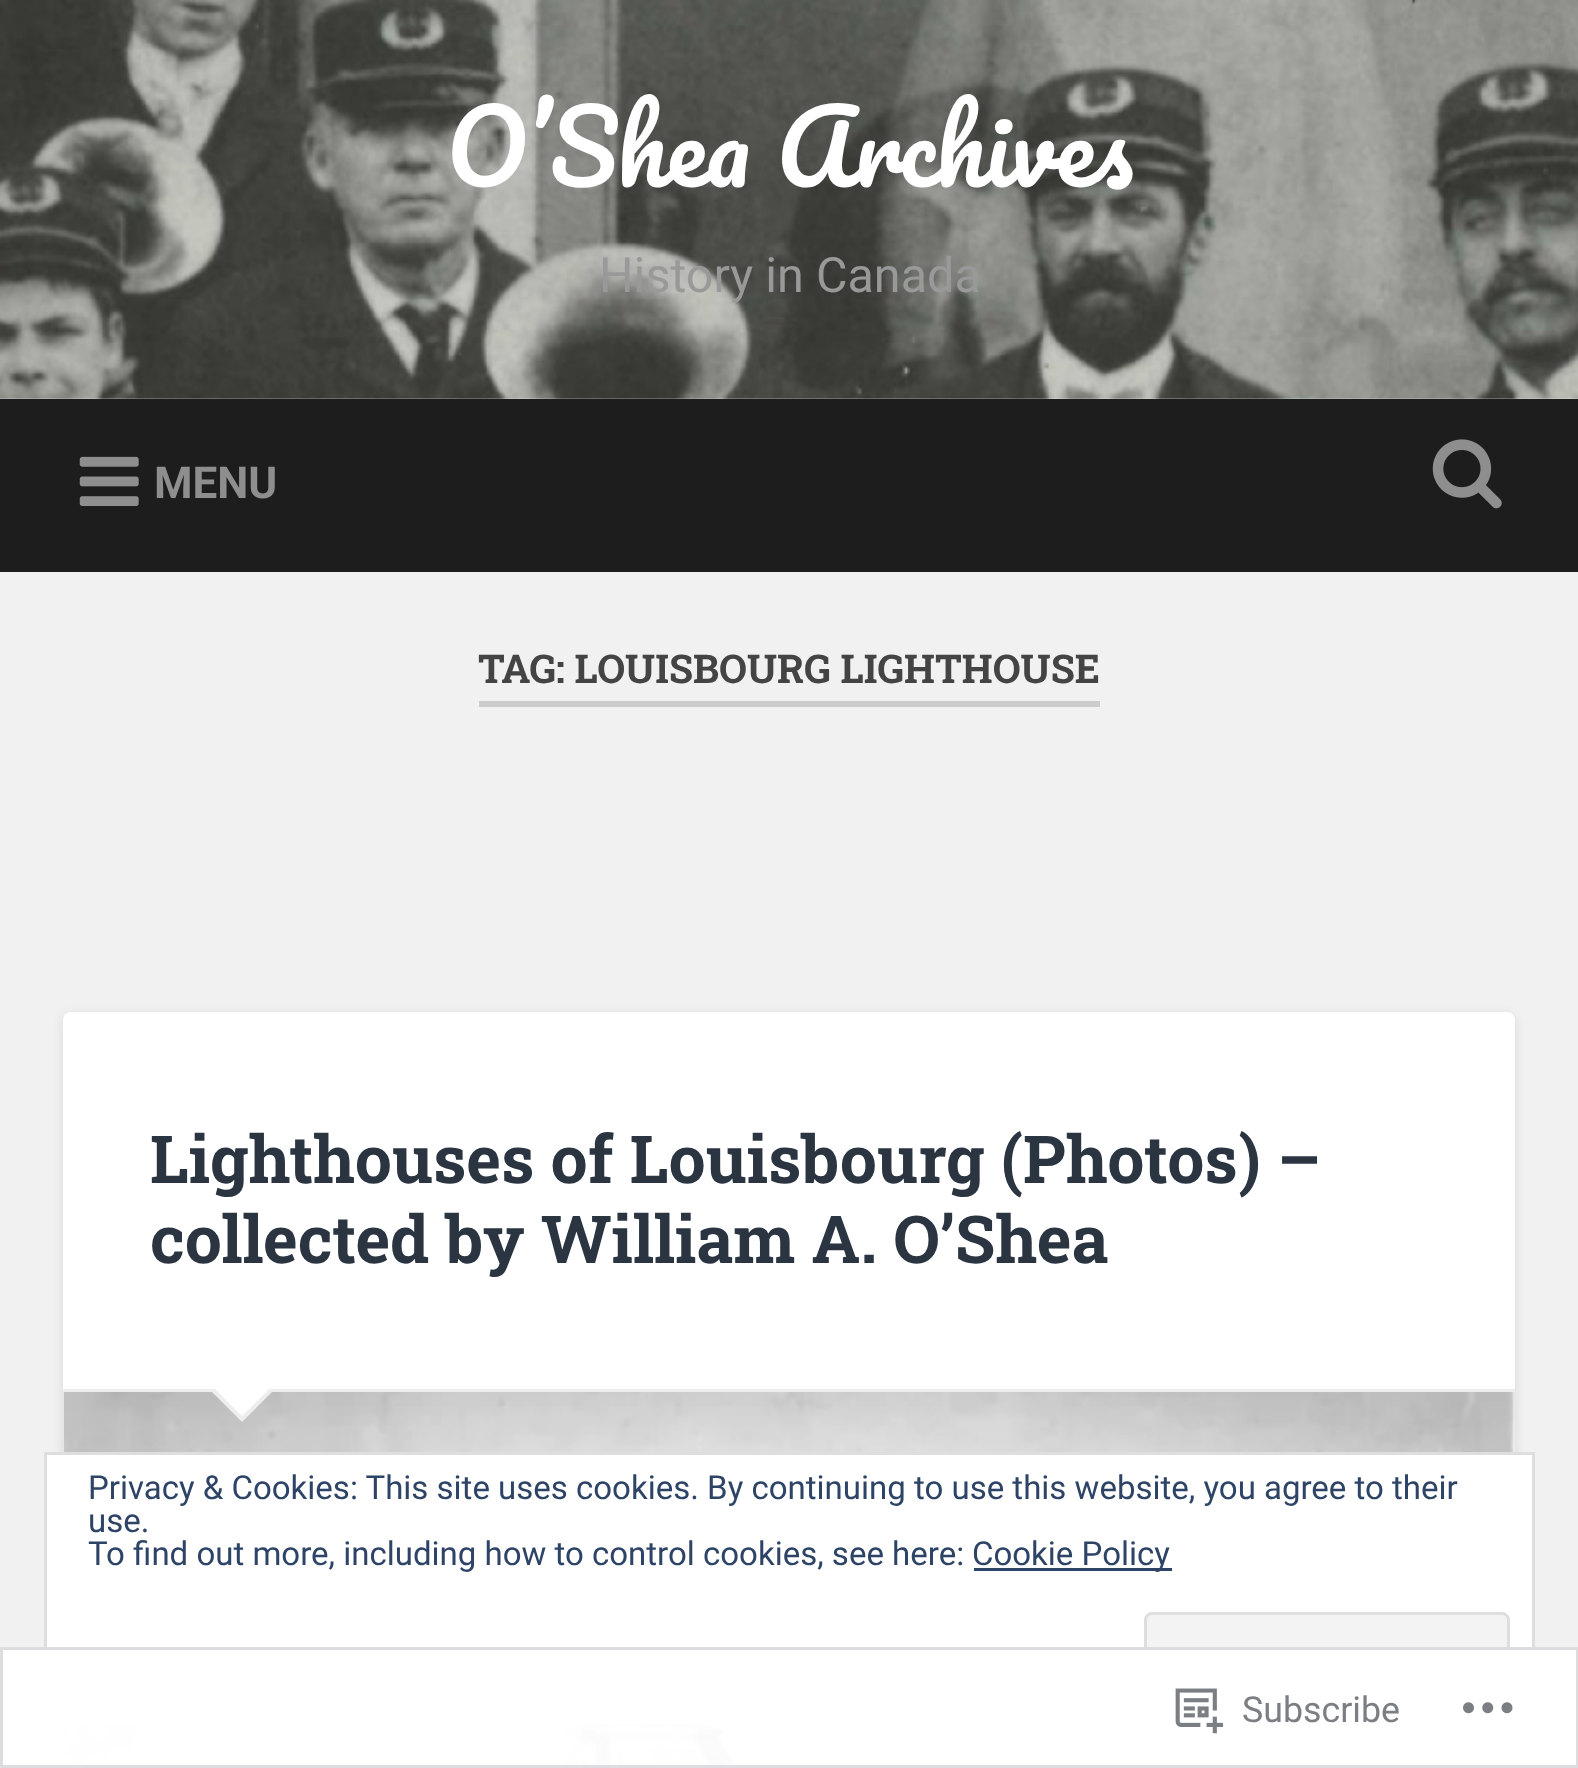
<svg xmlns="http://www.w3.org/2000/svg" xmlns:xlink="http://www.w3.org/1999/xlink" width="1578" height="1768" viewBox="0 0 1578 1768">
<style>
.cls-1{font:99px Pacifico;fill:#ffffff}
.cls-2{font:48.5px Roboto;fill:#999999}
.cls-3{font:bold 44px Roboto;fill:#8e8e8e}
.cls-4{font:bold 39.6px Roboto Slab;fill:#444444}
.cls-5{font:bold 66px Roboto Slab;fill:#2b3542}
.cls-6{font:33px Roboto;fill:#2e4467}
.cls-7{font:35.75px Roboto;fill:#7b7f84}
</style>
<rect width="100%" height="100%" fill="#f1f1f1"/>
<image xlink:href="image0.png" x="0" y="0" width="1578" height="399"/>
<rect fill="#1d1d1d" x="0" y="399" width="1578" height="173"/>
<image xlink:href="image1.png" x="79" y="456" width="60" height="50"/>
<image xlink:href="image2.png" x="1432" y="439" width="70" height="70"/>
<rect fill="#cccccc" x="479" y="701" width="621" height="6"/>
<rect fill="#000000" fill-opacity="0.1" filter="blur(5.5px)" x="63" y="1015" width="1452" height="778" rx="8"/>
<rect fill="#ffffff" x="63" y="1012" width="1452" height="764" rx="8"/>
<rect fill="#eeeeee" x="63" y="1389" width="1452" height="3"/>
<image xlink:href="image3.png" x="63" y="1392" width="1452" height="376"/>
<path fill="#eeeeee" d="M209 1389H275L242 1422Z"/>
<path fill="#ffffff" d="M212 1386H272L242 1416Z"/>
<rect fill="#ffffff" stroke="#dedede" stroke-width="3" x="45.5" y="1453.5" width="1488" height="269"/>
<rect fill="#2e4467" x="974" y="1568" width="198" height="3"/>
<rect fill="#f3f3f3" stroke="#dedede" stroke-width="3" x="1145.5" y="1613.5" width="363" height="85" rx="6.5"/>
<rect fill="#ffffff" fill-opacity="0.98" x="0" y="1647" width="1578" height="121"/>
<rect fill="none" stroke="#dcdcde" stroke-opacity="0.98" stroke-width="3" x="1.5" y="1648.5" width="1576" height="118"/>
<image xlink:href="image4.png" x="1175" y="1688" width="49" height="46"/>
<image xlink:href="image5.png" x="1463" y="1702" width="50" height="12"/>
<text class="cls-1" x="446" y="187">O’Shea Archives</text>
<text class="cls-2" x="599" y="292">History in Canada</text>
<text class="cls-3" x="154" y="498">MENU</text>
<text class="cls-4" x="478" y="683">TAG: LOUISBOURG LIGHTHOUSE</text>
<text class="cls-5"><tspan x="150" y="1183">Lighthouses of Louisbourg (Photos) –</tspan><tspan x="150" y="1263">collected by William A. O’Shea</tspan></text>
<text class="cls-6"><tspan x="88" y="1499">Privacy &amp; Cookies: This site uses cookies. By continuing to use this website, you agree to their</tspan><tspan x="88" y="1532">use.</tspan><tspan x="88" y="1565">To find out more, including how to control cookies, see here:</tspan></text>
<text class="cls-6" x="972" y="1565">Cookie Policy</text>
<text class="cls-7" x="1242" y="1722">Subscribe</text>
</svg>
